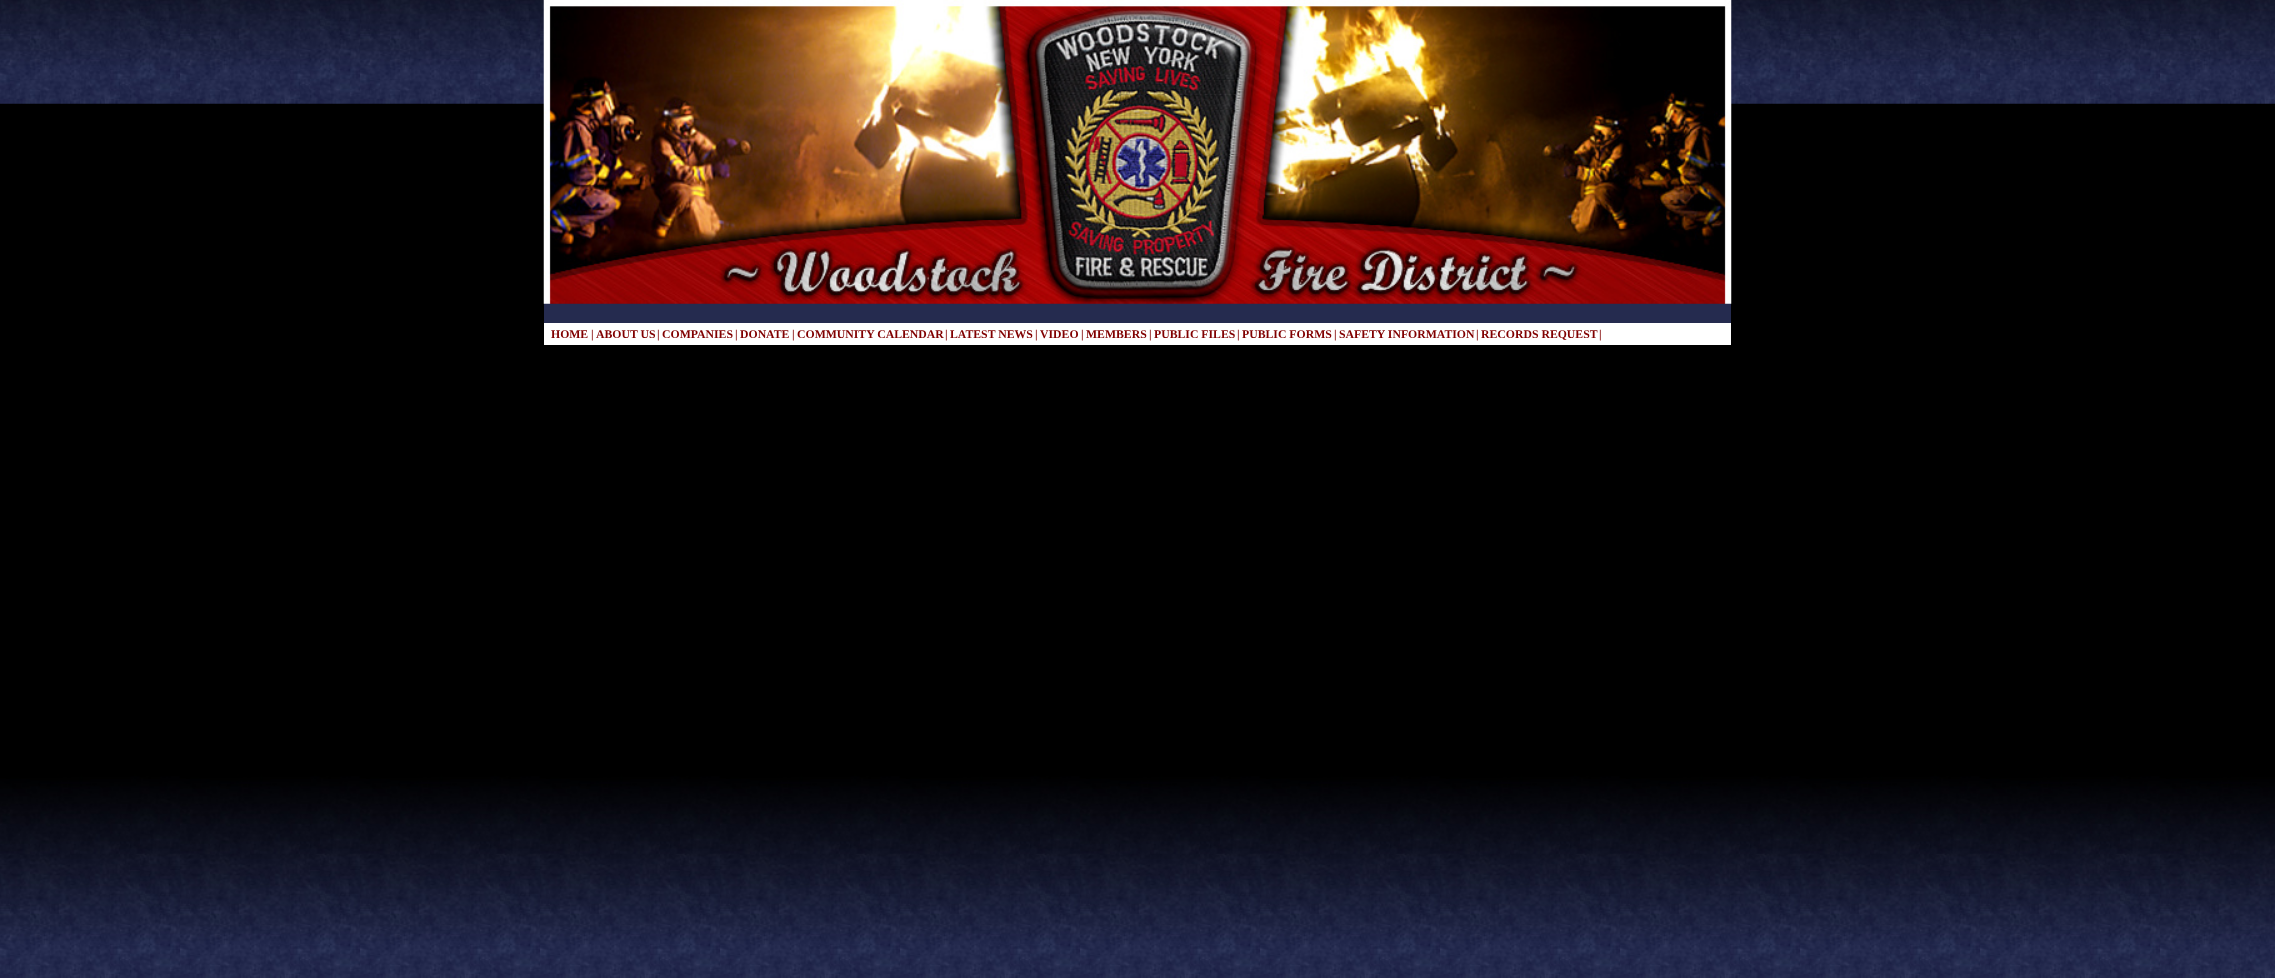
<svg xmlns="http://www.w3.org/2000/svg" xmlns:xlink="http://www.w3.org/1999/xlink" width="2275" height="978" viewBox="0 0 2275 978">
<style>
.cls-1{font:bold 11.75px Liberation Serif;fill:#800000}
</style>
<rect width="100%" height="100%" fill="#ffffff"/>
<image xlink:href="image0.png" x="0" y="0" width="2275" height="978"/>
<rect fill="#252b4f" x="544" y="303" width="1187" height="20"/>
<rect fill="#ffffff" x="544" y="323" width="1187" height="1"/>
<image xlink:href="image1.png" x="543" y="0" width="1189" height="304"/>
<rect fill="#ffffff" x="544" y="324" width="1187" height="21"/>
<text class="cls-1" x="551" y="338">HOME</text>
<text class="cls-1" x="591" y="338">|</text>
<text class="cls-1" x="596" y="338">ABOUT US</text>
<text class="cls-1" x="657" y="338">|</text>
<text class="cls-1" x="662" y="338">COMPANIES</text>
<text class="cls-1" x="735" y="338">|</text>
<text class="cls-1" x="740" y="338">DONATE</text>
<text class="cls-1" x="792" y="338">|</text>
<text class="cls-1" x="797" y="338">COMMUNITY CALENDAR</text>
<text class="cls-1" x="945" y="338">|</text>
<text class="cls-1" x="950" y="338">LATEST NEWS</text>
<text class="cls-1" x="1035" y="338">|</text>
<text class="cls-1" x="1040" y="338">VIDEO</text>
<text class="cls-1" x="1081" y="338">|</text>
<text class="cls-1" x="1086" y="338">MEMBERS</text>
<text class="cls-1" x="1149" y="338">|</text>
<text class="cls-1" x="1154" y="338">PUBLIC FILES</text>
<text class="cls-1" x="1237" y="338">|</text>
<text class="cls-1" x="1242" y="338">PUBLIC FORMS</text>
<text class="cls-1" x="1334" y="338">|</text>
<text class="cls-1" x="1339" y="338">SAFETY INFORMATION</text>
<text class="cls-1" x="1476" y="338">|</text>
<text class="cls-1" x="1481" y="338">RECORDS REQUEST</text>
<text class="cls-1" x="1599" y="338">|</text>
</svg>
